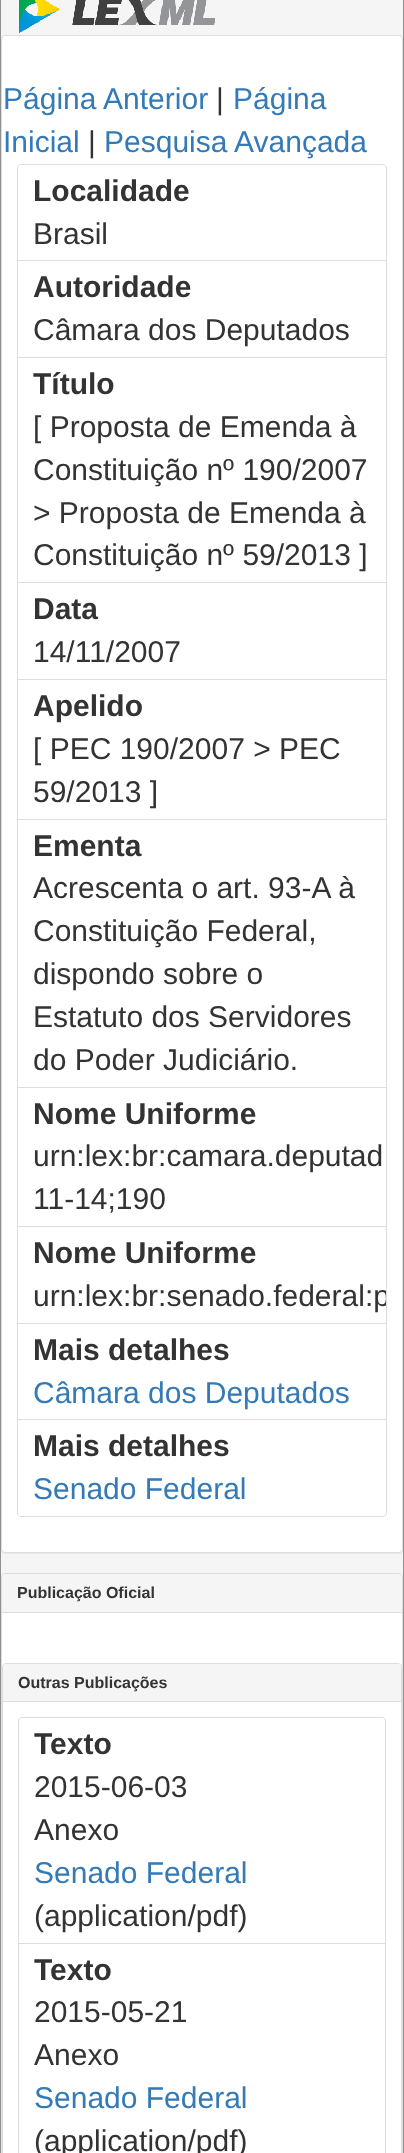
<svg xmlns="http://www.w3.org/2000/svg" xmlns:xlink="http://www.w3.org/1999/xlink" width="404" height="2153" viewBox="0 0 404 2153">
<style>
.cls-1{font:30px Liberation Sans;fill:#337ab7}
.cls-2{font:30px Liberation Sans;fill:#333333}
.cls-3{font:bold 30px Liberation Sans;fill:#333333}
.cls-4{font:bold 16px Liberation Sans;fill:#333333}
</style>
<defs>
<clipPath id="clip1"><rect x="18" y="1227" width="368" height="96"/></clipPath>
</defs>
<rect width="100%" height="100%" fill="#f5f5f5"/>
<rect fill="none" stroke="#909090" x="0.5" y="-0.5" width="403" height="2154"/>
<image xlink:href="image0.png" x="19" y="0" width="196" height="33"/>
<rect fill="#000000" fill-opacity="0.05" filter="blur(0.5px)" x="1" y="36" width="402" height="1518" rx="4"/>
<rect fill="#ffffff" stroke="#dddddd" x="1.5" y="35.5" width="401" height="1517" rx="3.5"/>
<path fill="none" stroke="#dddddd" d="M21 164.5H383C385 164.5 386.5 166 386.5 168V260.5H17.5V168C17.5 166 19 164.5 21 164.5Z"/>
<rect fill="none" stroke="#dddddd" x="17.5" y="260.5" width="369" height="97"/>
<rect fill="none" stroke="#dddddd" x="17.5" y="357.5" width="369" height="225"/>
<rect fill="none" stroke="#dddddd" x="17.5" y="582.5" width="369" height="97"/>
<rect fill="none" stroke="#dddddd" x="17.5" y="679.5" width="369" height="140"/>
<rect fill="none" stroke="#dddddd" x="17.5" y="819.5" width="369" height="268"/>
<rect fill="none" stroke="#dddddd" x="17.5" y="1087.5" width="369" height="139"/>
<rect fill="none" stroke="#dddddd" x="17.5" y="1226.5" width="369" height="97"/>
<rect fill="none" stroke="#dddddd" x="17.5" y="1323.5" width="369" height="96"/>
<path fill="#ffffff" stroke="#dddddd" d="M17.5 1419.5H386.5V1513C386.5 1515 385 1516.5 383 1516.5H21C19 1516.5 17.5 1515 17.5 1513Z"/>
<rect fill="#ffffff" stroke="#dddddd" x="1.5" y="1573.5" width="401" height="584" rx="3.5"/>
<path fill="#f5f5f5" d="M5 1574H399C400.5 1574 402 1575.5 402 1577V1613H2V1577C2 1575.5 3.5 1574 5 1574Z"/>
<rect fill="#dddddd" x="2" y="1612" width="400" height="1"/>
<rect fill="none" stroke="#dddddd" x="2.5" y="1663.5" width="399" height="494" rx="3.5"/>
<path fill="#f5f5f5" d="M6 1664H398C399.5 1664 401 1665.5 401 1667V1702H3V1667C3 1665.5 4.5 1664 6 1664Z"/>
<rect fill="#dddddd" x="3" y="1701" width="398" height="1"/>
<path fill="none" stroke="#dddddd" d="M22 1717.5H382C384 1717.5 385.5 1719 385.5 1721V1943.5H18.5V1721C18.5 1719 20 1717.5 22 1717.5Z"/>
<rect fill="none" stroke="#dddddd" x="18.5" y="1943.5" width="367" height="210"/>
<text class="cls-1" x="3" y="109">Página Anterior</text>
<text class="cls-2" x="216" y="109">|</text>
<text class="cls-1" x="233" y="109">Página</text>
<text class="cls-1" x="3" y="152">Inicial</text>
<text class="cls-2" x="88" y="152">|</text>
<text class="cls-1" x="104" y="152">Pesquisa Avançada</text>
<text class="cls-3" x="33" y="201">Localidade</text>
<text class="cls-2" x="33" y="244">Brasil</text>
<text class="cls-3" x="33" y="297">Autoridade</text>
<text class="cls-2" x="33" y="340">Câmara dos Deputados</text>
<text class="cls-3" x="33" y="394">Título</text>
<text class="cls-2"><tspan x="33" y="437">[ Proposta de Emenda à</tspan><tspan x="33" y="480">Constituição nº 190/2007</tspan><tspan x="33" y="523">&gt; Proposta de Emenda à</tspan><tspan x="33" y="565">Constituição nº 59/2013 ]</tspan></text>
<text class="cls-3" x="33" y="619">Data</text>
<text class="cls-2" x="33" y="662">14/11/2007</text>
<text class="cls-3" x="33" y="716">Apelido</text>
<text class="cls-2"><tspan x="33" y="759">[ PEC 190/2007 &gt; PEC</tspan><tspan x="33" y="802">59/2013 ]</tspan></text>
<text class="cls-3" x="33" y="856">Ementa</text>
<text class="cls-2"><tspan x="33" y="898">Acrescenta o art. 93-A à</tspan><tspan x="33" y="941">Constituição Federal,</tspan><tspan x="33" y="984">dispondo sobre o</tspan><tspan x="33" y="1027">Estatuto dos Servidores</tspan><tspan x="33" y="1070">do Poder Judiciário.</tspan></text>
<text class="cls-3" x="33" y="1124">Nome Uniforme</text>
<text class="cls-2"><tspan x="33" y="1166">urn:lex:br:camara.deputad</tspan><tspan x="33" y="1209">11-14;190</tspan></text>
<text class="cls-3" x="33" y="1263">Nome Uniforme</text>
<g clip-path="url(#clip1)">
<text class="cls-2" x="33" y="1306">urn:lex:br:senado.federal:p</text>
</g>
<text class="cls-3" x="33" y="1360">Mais detalhes</text>
<text class="cls-1" x="33" y="1403">Câmara dos Deputados</text>
<text class="cls-3" x="33" y="1456">Mais detalhes</text>
<text class="cls-1" x="33" y="1499">Senado Federal</text>
<text class="cls-4" x="17" y="1598">Publicação Oficial</text>
<text class="cls-4" x="18" y="1688">Outras Publicações</text>
<text class="cls-3" x="34" y="1754">Texto</text>
<text class="cls-2"><tspan x="34" y="1797">2015-06-03</tspan><tspan x="34" y="1840">Anexo</tspan></text>
<text class="cls-1" x="34" y="1883">Senado Federal</text>
<text class="cls-2" x="34" y="1926">(application/pdf)</text>
<text class="cls-3" x="34" y="1980">Texto</text>
<text class="cls-2"><tspan x="34" y="2022">2015-05-21</tspan><tspan x="34" y="2065">Anexo</tspan></text>
<text class="cls-1" x="34" y="2108">Senado Federal</text>
<text class="cls-2" x="34" y="2151">(application/pdf)</text>
</svg>
